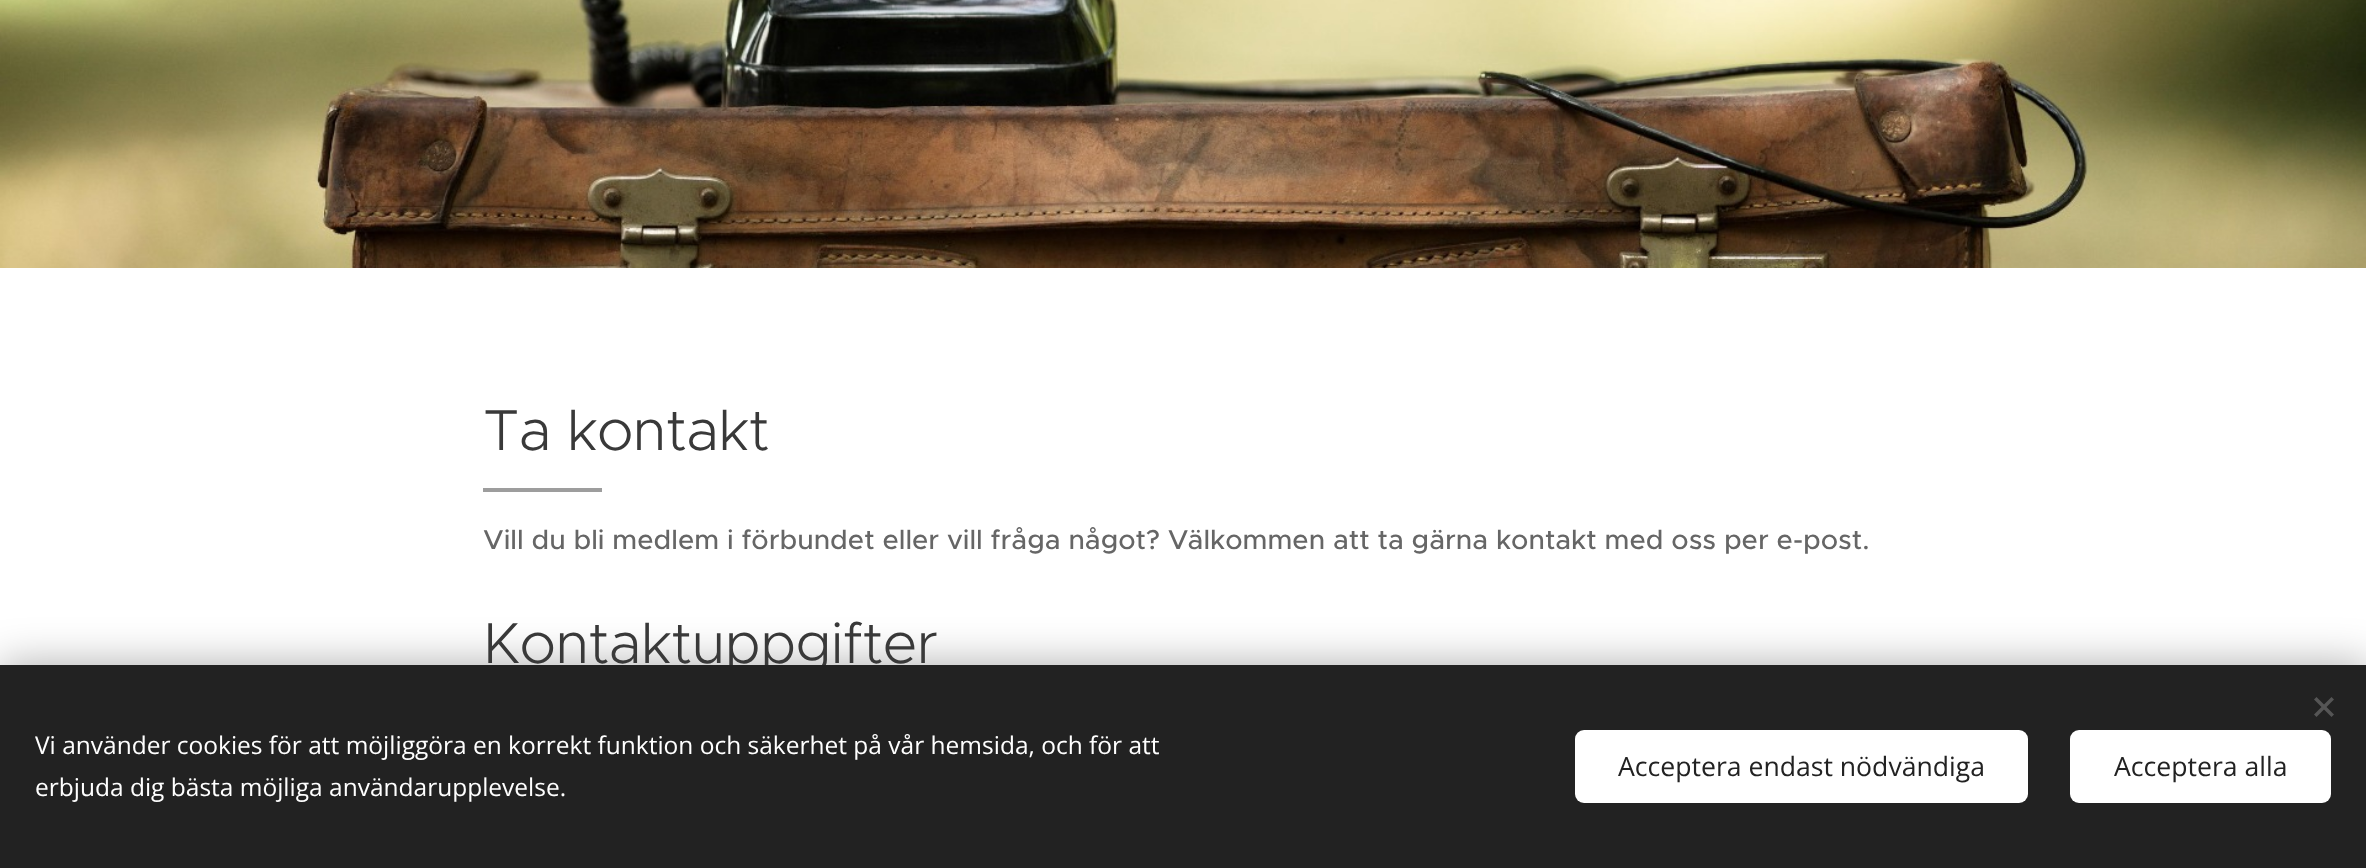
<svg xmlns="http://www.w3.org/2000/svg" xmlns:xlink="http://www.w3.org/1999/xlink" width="2366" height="868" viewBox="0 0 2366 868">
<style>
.cls-1{font:300 57.75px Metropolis;letter-spacing:-0.6px;fill:#393939}
.cls-2{font:500 27.47px Metropolis;fill:#666666}
.cls-3{font:24.5px Open Sans;fill:#ffffff}
.cls-4{font:26.6px Open Sans;fill:#222222}
</style>
<rect width="100%" height="100%" fill="#ffffff"/>
<image xlink:href="image0.png" x="0" y="0" width="2366" height="268"/>
<rect fill="#9d9d9d" x="483" y="488" width="119" height="4"/>
<rect fill="#000000" fill-opacity="0.33" filter="blur(22px)" x="0" y="665" width="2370" height="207"/>
<text class="cls-1" x="483" y="450">Ta kontakt</text>
<text class="cls-2" x="483" y="549">Vill du bli medlem i förbundet eller vill fråga något? Välkommen att ta gärna kontakt med oss per e-post.</text>
<text class="cls-1" x="483" y="663">Kontaktuppgifter</text>
<rect fill="#222222" x="0" y="665" width="2366" height="203"/>
<path fill="#555555" d="M2314 714.5L2331.5 697L2334 699.5L2316.5 717Z"/>
<path fill="#555555" d="M2316.5 697L2334 714.5L2331.5 717L2314 699.5Z"/>
<text class="cls-3"><tspan x="35" y="754">Vi använder cookies för att möjliggöra en korrekt funktion och säkerhet på vår hemsida, och för att</tspan><tspan x="35" y="796">erbjuda dig bästa möjliga användarupplevelse.</tspan></text>
<rect fill="#ffffff" x="1575" y="730" width="453" height="73" rx="9"/>
<text class="cls-4" x="1618" y="776">Acceptera endast nödvändiga</text>
<rect fill="#ffffff" x="2070" y="730" width="261" height="73" rx="9"/>
<text class="cls-4" x="2114" y="776">Acceptera alla</text>
</svg>
